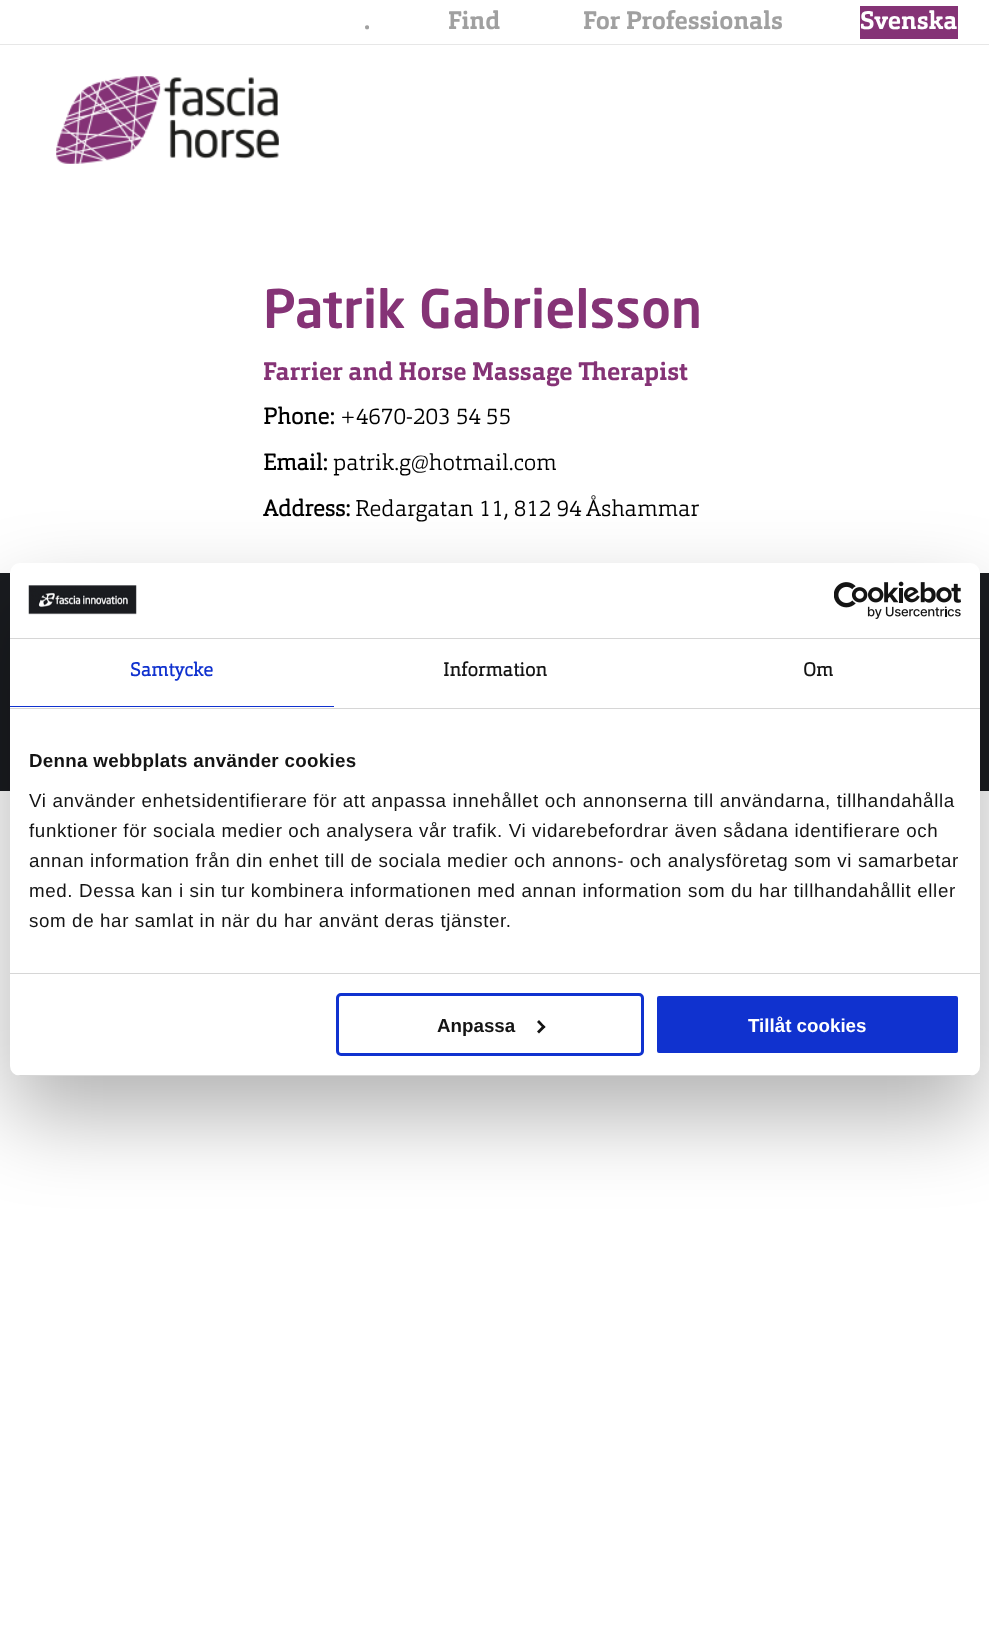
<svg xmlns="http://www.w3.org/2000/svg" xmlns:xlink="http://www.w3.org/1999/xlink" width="989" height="1638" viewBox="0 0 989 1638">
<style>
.cls-1{font:bold 25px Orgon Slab;fill:#a0a0a0}
.cls-2{font:bold 25px Orgon Slab;fill:#ffffff}
.cls-3{font:500 52.5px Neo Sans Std;fill:#853376}
.cls-4{font:bold 25px Orgon Slab;fill:#853376}
.cls-5{font:bold 22.5px 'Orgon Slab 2';fill:#000000}
.cls-6{font:300 22.5px Orgon Slab;fill:#000000}
.cls-7{font:bold 18.75px 'Orgon Slab 2';letter-spacing:0.1px;fill:#1032cf}
.cls-8{font:bold 18.75px 'Orgon Slab 2';letter-spacing:0.1px;fill:#141414}
.cls-9{font:bold 18.75px Liberation Sans;letter-spacing:0.3px;fill:#141414}
.cls-10{font:18.75px Liberation Sans;letter-spacing:0.62px;fill:#141414}
.cls-11{font:bold 18.75px Liberation Sans;fill:#141414}
.cls-12{font:bold 18.75px Liberation Sans;fill:#ffffff}
</style>
<defs>
<clipPath id="clip1"><rect x="10" y="563" width="970" height="513" rx="10"/></clipPath>
</defs>
<rect width="100%" height="100%" fill="#ffffff"/>
<rect fill="#853376" x="860" y="6" width="98" height="33"/>
<rect fill="#e7e7e7" x="0" y="44" width="989" height="1"/>
<image xlink:href="image0.png" x="56" y="76" width="223" height="88"/>
<rect fill="#1a1c20" x="0" y="573" width="989" height="218"/>
<rect fill="#000000" fill-opacity="0.3" filter="blur(42.5px)" x="10" y="603" width="970" height="513" rx="10"/>
<rect fill="#ffffff" x="10" y="563" width="970" height="513" rx="10"/>
<rect fill="#d6d6d6" x="10" y="638" width="970" height="1"/>
<image xlink:href="image1.png" x="28" y="585" width="109" height="30"/>
<image xlink:href="image2.png" x="834" y="581" width="127" height="38"/>
<rect fill="#d6d6d6" x="10" y="708" width="970" height="1"/>
<rect fill="#1032cf" x="10" y="706" width="324" height="1"/>
<rect fill="#d6d6d6" x="10" y="973" width="970" height="1"/>
<g clip-path="url(#clip1)">
<rect fill="#d6d6d6" x="10" y="1075" width="970" height="1"/>
</g>
<rect fill="none" stroke="#1032cf" stroke-width="3" x="337.5" y="994.5" width="305" height="60" rx="3.5"/>
<path fill="#141414" d="M539 1020L545.5 1027L543.5 1028.5L537 1022Z"/>
<path fill="#141414" d="M543.5 1025L545.5 1027L539 1033.5L537 1031.5Z"/>
<rect fill="#1032cf" stroke="#ffffff" stroke-width="3" x="655.5" y="994.5" width="304" height="60" rx="3.5"/>
<text class="cls-1" x="364" y="29">.</text>
<text class="cls-1" x="448" y="29">Find</text>
<text class="cls-1" x="583" y="29">For Professionals</text>
<text class="cls-2" x="860" y="29">Svenska</text>
<text class="cls-3" x="263" y="328">Patrik Gabrielsson</text>
<text class="cls-4" x="263" y="380">Farrier and Horse Massage Therapist</text>
<text class="cls-5" x="263" y="424">Phone:</text>
<text class="cls-6" x="340" y="424">+4670-203 54 55</text>
<text class="cls-5" x="263" y="470">Email:</text>
<text class="cls-6" x="333" y="470">patrik.g@hotmail.com</text>
<text class="cls-5" x="263" y="516">Address:</text>
<text class="cls-6" x="355" y="516">Redargatan 11, 812 94 Åshammar</text>
<text class="cls-7" x="130" y="676">Samtycke</text>
<text class="cls-8" x="443" y="676">Information</text>
<text class="cls-8" x="803" y="676">Om</text>
<text class="cls-9" x="29" y="767">Denna webbplats använder cookies</text>
<text class="cls-10"><tspan x="29" y="807">Vi använder enhetsidentifierare för att anpassa innehållet och annonserna till användarna, tillhandahålla</tspan><tspan x="29" y="837">funktioner för sociala medier och analysera vår trafik. Vi vidarebefordrar även sådana identifierare och</tspan><tspan x="29" y="867">annan information från din enhet till de sociala medier och annons- och analysföretag som vi samarbetar</tspan><tspan x="29" y="897">med. Dessa kan i sin tur kombinera informationen med annan information som du har tillhandahållit eller</tspan><tspan x="29" y="927">som de har samlat in när du har använt deras tjänster.</tspan></text>
<text class="cls-11" x="437" y="1032">Anpassa</text>
<text class="cls-12" x="748" y="1032">Tillåt cookies</text>
</svg>
